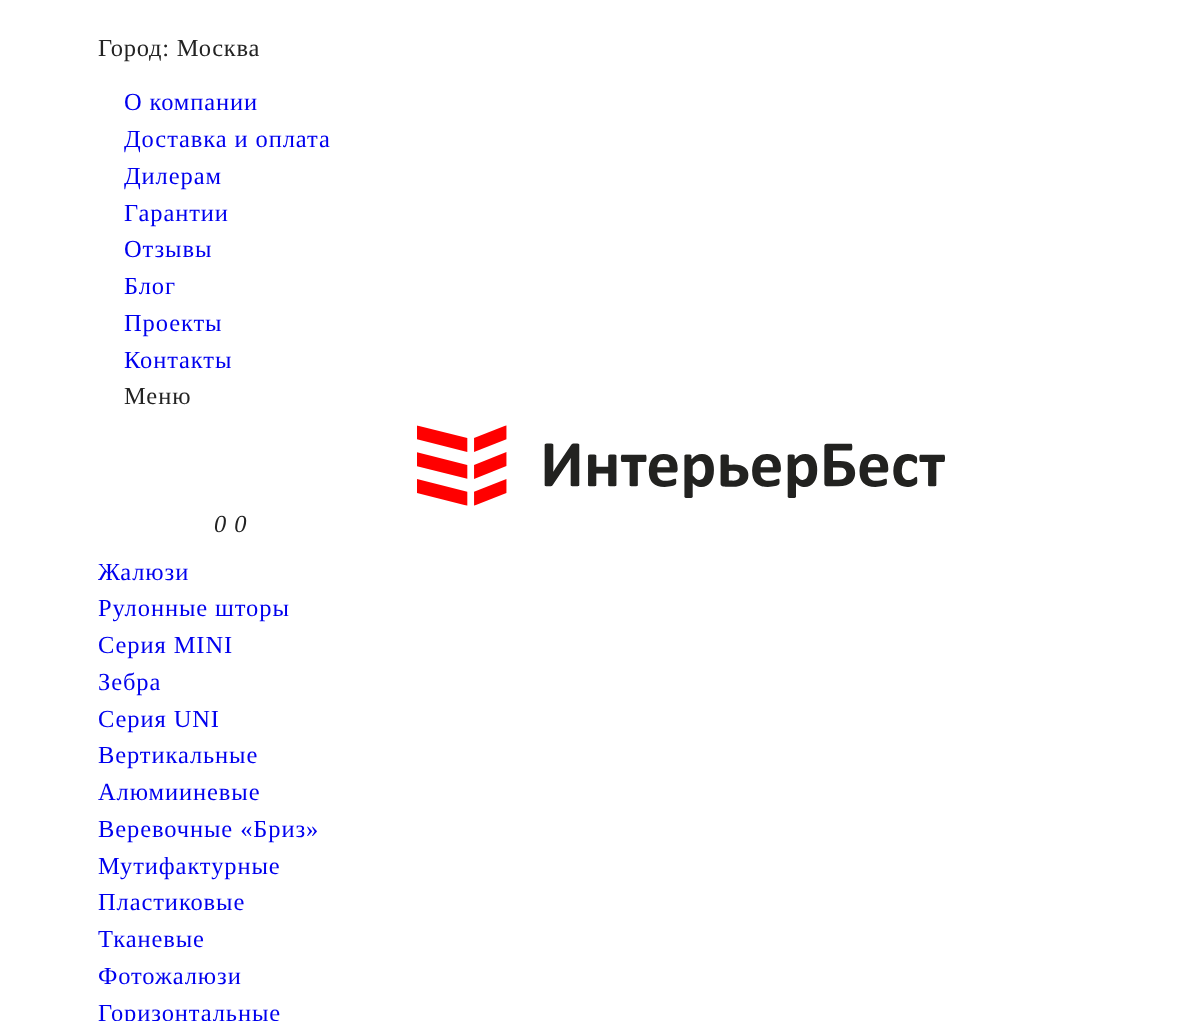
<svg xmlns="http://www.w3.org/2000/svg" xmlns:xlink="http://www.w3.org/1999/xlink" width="1203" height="1021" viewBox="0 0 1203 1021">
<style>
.cls-1{font:24.5px Liberation Serif;letter-spacing:0.75px;fill:#232323}
.cls-2{font:24.5px Liberation Serif;letter-spacing:0.9px;fill:#0000ee}
.cls-3{font:24.5px Liberation Serif;letter-spacing:0.9px;fill:#232323}
.cls-4{font:italic 24.5px Liberation Serif;letter-spacing:0.9px;fill:#232323}
</style>
<rect width="100%" height="100%" fill="#ffffff"/>
<image xlink:href="image0.png" x="417" y="425" width="528" height="81"/>
<text class="cls-1" x="98" y="56">Город: Москва</text>
<text class="cls-2"><tspan x="124" y="110">О компании</tspan><tspan x="124" y="147">Доставка и оплата</tspan><tspan x="124" y="184">Дилерам</tspan><tspan x="124" y="221">Гарантии</tspan><tspan x="124" y="257">Отзывы</tspan><tspan x="124" y="294">Блог</tspan><tspan x="124" y="331">Проекты</tspan><tspan x="124" y="368">Контакты</tspan></text>
<text class="cls-3" x="124" y="404">Меню</text>
<text class="cls-4" x="214" y="532">0 0</text>
<text class="cls-2"><tspan x="98" y="580">Жалюзи</tspan><tspan x="98" y="616">Рулонные шторы</tspan><tspan x="98" y="653">Серия MINI</tspan><tspan x="98" y="690">Зебра</tspan><tspan x="98" y="727">Серия UNI</tspan><tspan x="98" y="763">Вертикальные</tspan><tspan x="98" y="800">Алюмииневые</tspan><tspan x="98" y="837">Веревочные «Бриз»</tspan><tspan x="98" y="874">Мутифактурные</tspan><tspan x="98" y="910">Пластиковые</tspan><tspan x="98" y="947">Тканевые</tspan><tspan x="98" y="984">Фотожалюзи</tspan><tspan x="98" y="1021">Горизонтальные</tspan></text>
</svg>
